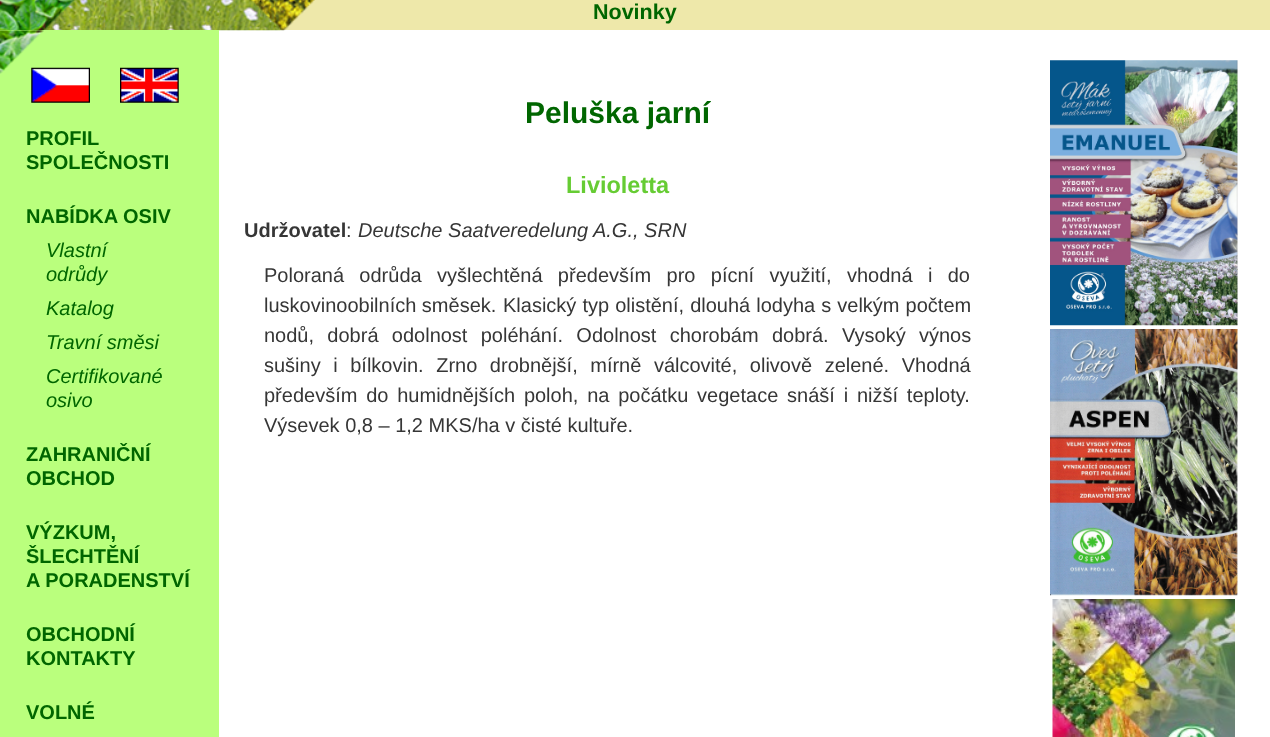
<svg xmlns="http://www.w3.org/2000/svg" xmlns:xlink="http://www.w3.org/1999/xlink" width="1270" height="737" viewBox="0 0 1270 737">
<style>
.cls-1{font:bold 21.5px Liberation Sans;fill:#006600}
.cls-2{font:bold 20px Liberation Sans;fill:#006600}
.cls-3{font:italic 20px Liberation Sans;fill:#006600}
.cls-4{font:bold 30px Liberation Sans;fill:#006600}
.cls-5{font:bold 23.5px Liberation Sans;fill:#66cc33}
.cls-6{font:bold 20px Liberation Sans;fill:#363636}
.cls-7{font:20px Liberation Sans;fill:#363636}
.cls-8{font:italic 20px Liberation Sans;fill:#363636}
</style>
<rect width="100%" height="100%" fill="#ffffff"/>
<rect fill="#eee8aa" x="279" y="0" width="991" height="30"/>
<image xlink:href="image0.png" x="0" y="0" width="315" height="31"/>
<rect fill="#baff7d" x="0" y="30" width="219" height="707"/>
<image xlink:href="image1.png" x="0" y="30" width="44" height="44"/>
<image xlink:href="image2.png" x="31" y="67" width="59" height="36"/>
<image xlink:href="image3.png" x="120" y="67" width="59" height="36"/>
<image xlink:href="image4.png" x="1050" y="60" width="188" height="266"/>
<image xlink:href="image5.png" x="1050" y="329" width="188" height="267"/>
<image xlink:href="image6.png" x="1052" y="599" width="183" height="138"/>
<text class="cls-1" x="593" y="19">Novinky</text>
<text class="cls-2"><tspan x="26" y="145">PROFIL</tspan><tspan x="26" y="169">SPOLEČNOSTI</tspan></text>
<text class="cls-2" x="26" y="223">NABÍDKA OSIV</text>
<text class="cls-3"><tspan x="46" y="257">Vlastní</tspan><tspan x="46" y="281">odrůdy</tspan><tspan x="46" y="315">Katalog</tspan><tspan x="46" y="349">Travní směsi</tspan><tspan x="46" y="383">Certifikované</tspan><tspan x="46" y="407">osivo</tspan></text>
<text class="cls-2"><tspan x="26" y="461">ZAHRANIČNÍ</tspan><tspan x="26" y="485">OBCHOD</tspan></text>
<text class="cls-2"><tspan x="26" y="539">VÝZKUM,</tspan><tspan x="26" y="563">ŠLECHTĚNÍ</tspan><tspan x="26" y="587">A PORADENSTVÍ</tspan></text>
<text class="cls-2"><tspan x="26" y="641">OBCHODNÍ</tspan><tspan x="26" y="665">KONTAKTY</tspan></text>
<text class="cls-2" x="26" y="719">VOLNÉ</text>
<text class="cls-4" x="525" y="123">Peluška jarní</text>
<text class="cls-5" x="566" y="193">Livioletta</text>
<text class="cls-6" x="244" y="237">Udržovatel</text>
<text class="cls-7" x="346" y="237">:</text>
<text class="cls-8" x="358" y="237">Deutsche Saatveredelung A.G., SRN</text>
<text class="cls-7"><tspan x="264" y="282" word-spacing="9.75">Poloraná odrůda vyšlechtěná především pro pícní využití, vhodná i do</tspan><tspan x="264" y="312">luskovinoobilních směsek.</tspan></text>
<text class="cls-7" x="503" y="312" word-spacing="0.5">Klasický typ olistění, dlouhá lodyha s velkým počtem</text>
<text class="cls-7"><tspan x="264" y="342" word-spacing="7.75">nodů, dobrá odolnost poléhání. Odolnost chorobám dobrá. Vysoký výnos</tspan><tspan x="264" y="372" word-spacing="7">sušiny i bílkovin. Zrno drobnější, mírně válcovité, olivově zelené. Vhodná</tspan><tspan x="264" y="402" word-spacing="3.25">především do humidnějších poloh, na počátku vegetace snáší i nižší teploty.</tspan><tspan x="264" y="432">Výsevek 0,8 – 1,2 MKS/ha v čisté kultuře.</tspan></text>
</svg>
